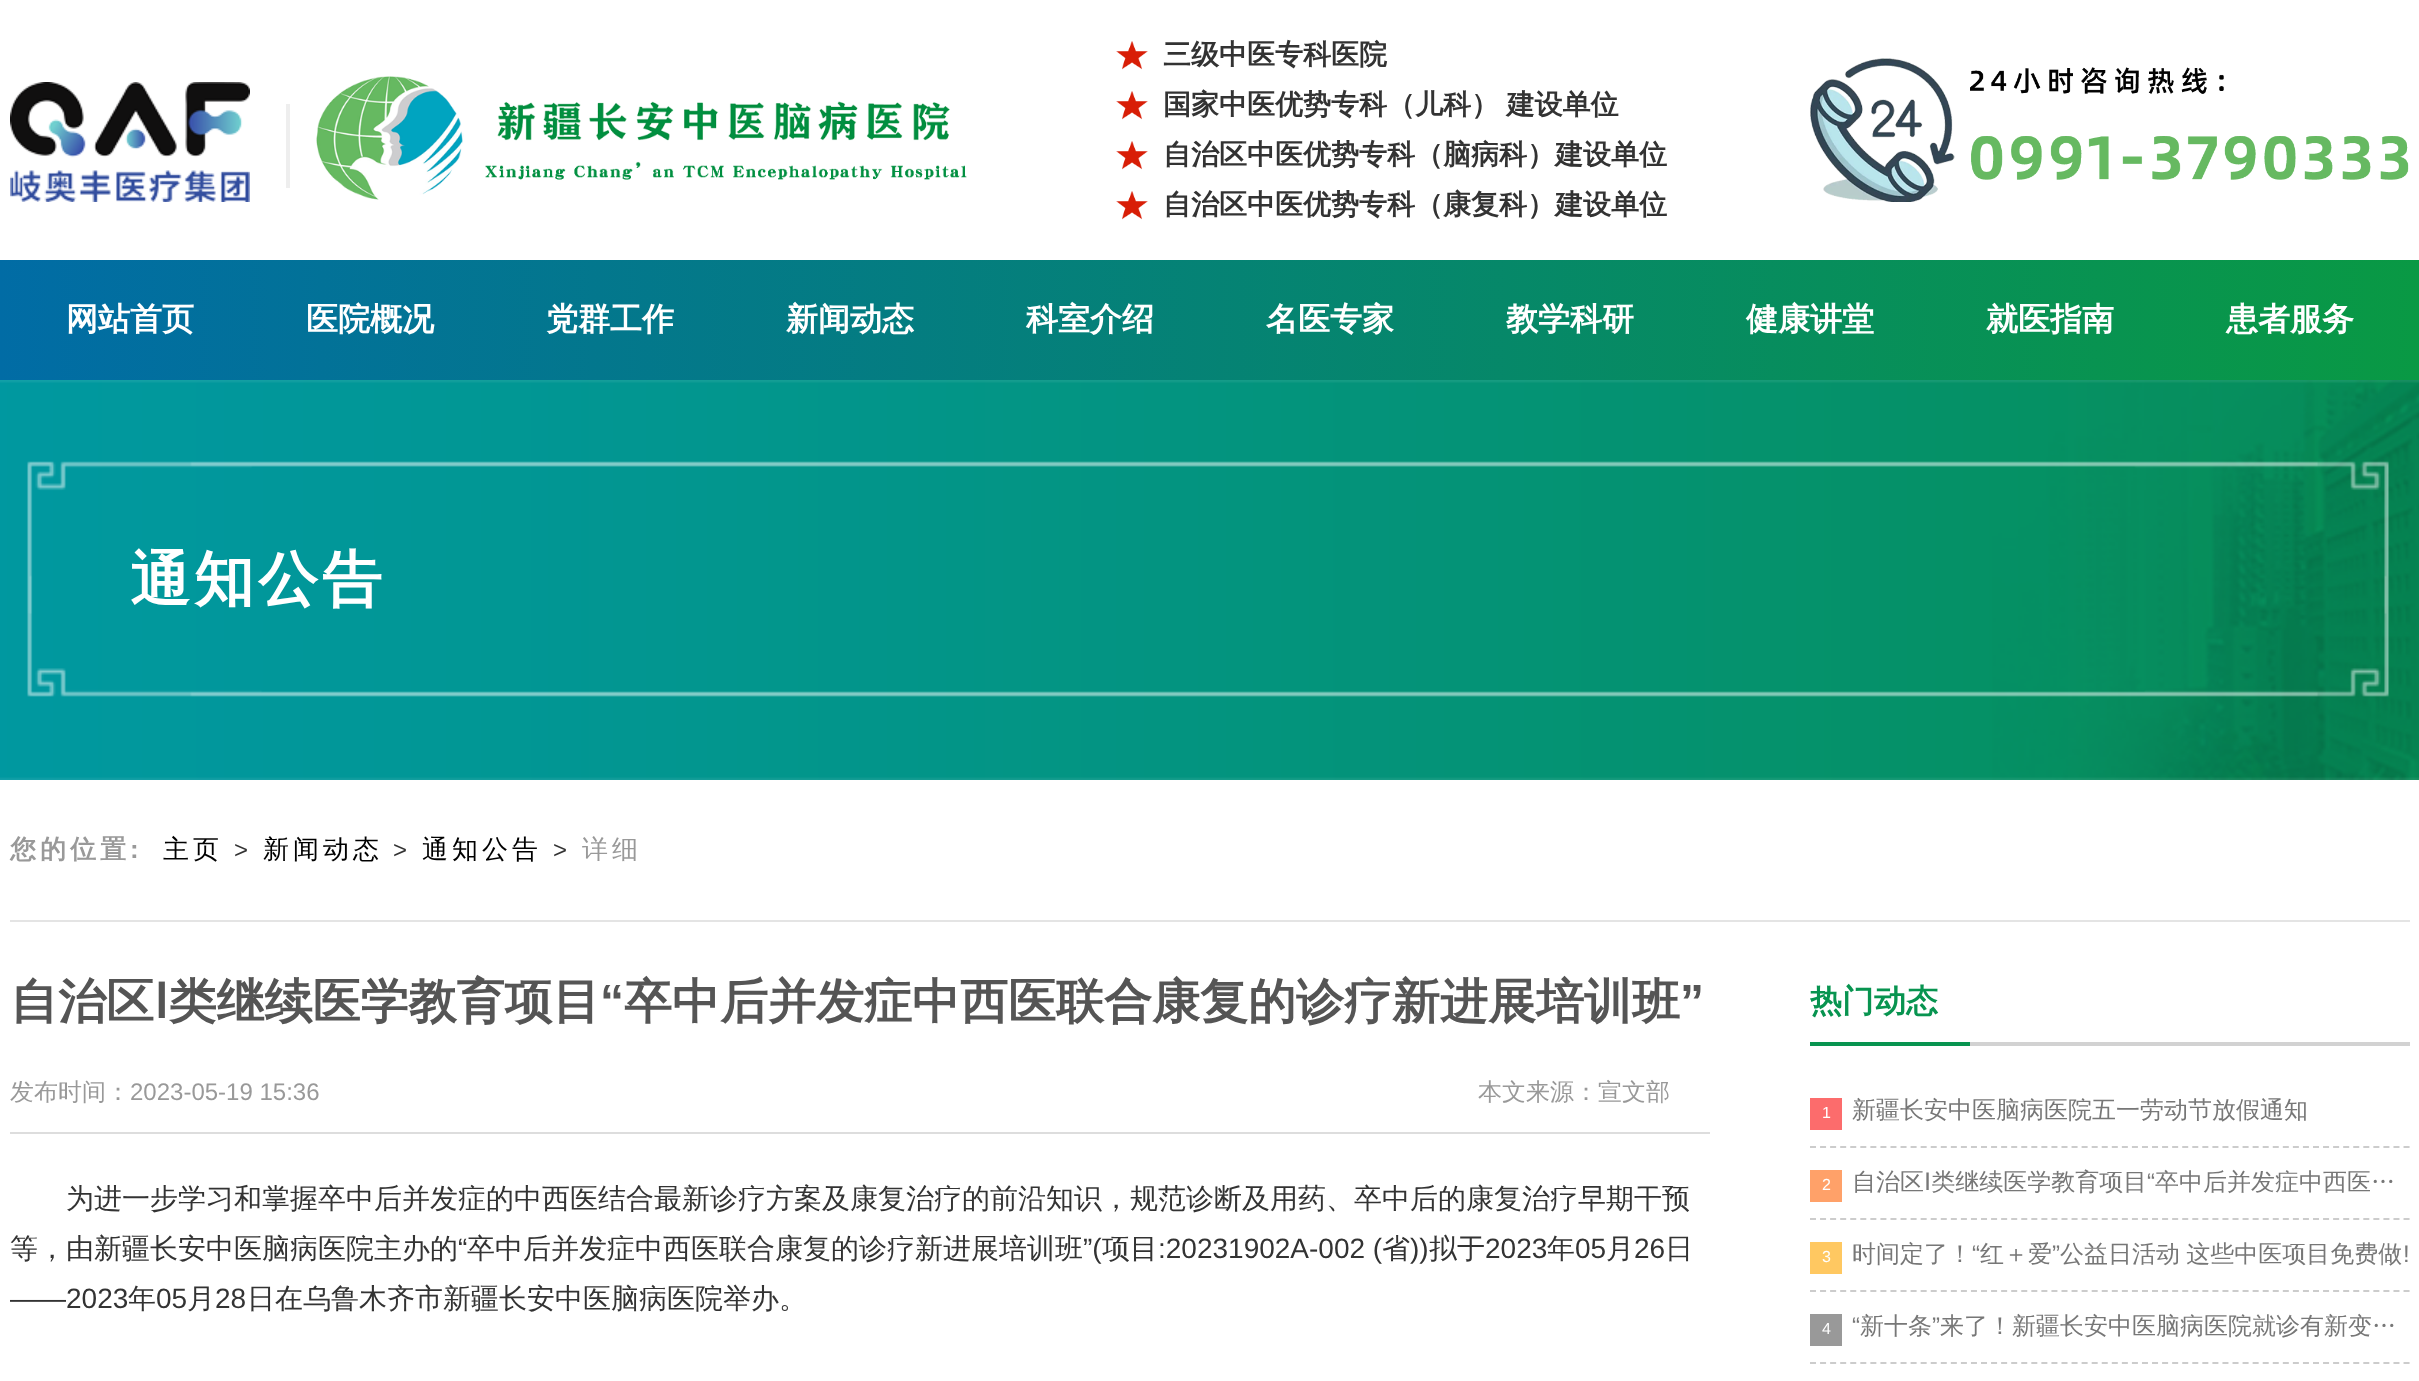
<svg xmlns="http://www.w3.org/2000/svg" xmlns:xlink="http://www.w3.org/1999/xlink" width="2419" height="1381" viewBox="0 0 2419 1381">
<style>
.cls-1{font:bold 28px WenQuanYi Zen Hei;fill:#333333}
.cls-2{font:bold 32px WenQuanYi Zen Hei;fill:#ffffff}
.cls-3{font:bold 60px WenQuanYi Zen Hei;letter-spacing:4px;fill:#ffffff}
.cls-4{font:bold 26px WenQuanYi Zen Hei;letter-spacing:4px;fill:#999999}
.cls-5{font:bold 26px Liberation Sans;letter-spacing:4px;fill:#999999}
.cls-6{font:500 26px WenQuanYi Zen Hei;letter-spacing:4px;fill:#000000}
.cls-7{font:24px Liberation Sans;letter-spacing:4px;fill:#333333}
.cls-8{font:500 26px WenQuanYi Zen Hei;letter-spacing:4px;fill:#999999}
.cls-9{font:bold 48px WenQuanYi Zen Hei;fill:#555555}
.cls-10{font:bold 48px DejaVu Sans;fill:#555555}
.cls-11{font:bold 48px Liberation Sans;fill:#555555}
.cls-12{font:500 24px WenQuanYi Zen Hei;fill:#999999}
.cls-13{font:24px Liberation Sans;fill:#999999}
.cls-14{font:500 28px WenQuanYi Zen Hei;fill:#333333}
.cls-15{font:28px Liberation Sans;fill:#333333}
.cls-16{font:bold 32px WenQuanYi Zen Hei;fill:#089450}
.cls-17{font:16px Liberation Sans;fill:#ffffff}
.cls-18{font:500 24px WenQuanYi Zen Hei;fill:#777777}
.cls-19{font:24px DejaVu Sans;fill:#777777}
.cls-20{font:24px Liberation Sans;fill:#777777}
</style>
<defs>
<linearGradient id="g1" gradientUnits="userSpaceOnUse" x1="0" y1="320" x2="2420" y2="320"><stop offset="0" stop-color="#016ca5"/><stop offset="1" stop-color="#099944"/></linearGradient>
</defs>
<rect width="100%" height="100%" fill="#ffffff"/>
<image xlink:href="image0.png" x="10" y="82" width="240" height="120"/>
<rect fill="#eeeeee" x="286" y="104" width="4" height="84"/>
<image xlink:href="image1.png" x="316" y="76" width="651" height="124"/>
<image xlink:href="image2.png" x="1116" y="41" width="32" height="29"/>
<image xlink:href="image2.png" x="1116" y="91" width="32" height="29"/>
<image xlink:href="image2.png" x="1116" y="141" width="32" height="29"/>
<image xlink:href="image2.png" x="1116" y="191" width="32" height="29"/>
<image xlink:href="image3.png" x="1810" y="58" width="599" height="144"/>
<rect fill="url(#g1)" x="0" y="260" width="2419" height="120"/>
<image xlink:href="image4.png" x="0" y="380" width="2419" height="400"/>
<image xlink:href="image5.png" x="27" y="461" width="2362" height="236"/>
<rect fill="#e4e4e4" x="10" y="920" width="2400" height="2"/>
<rect fill="#dddddd" x="10" y="1132" width="1700" height="2"/>
<rect fill="#d2d2d2" x="1970" y="1042" width="440" height="4"/>
<rect fill="#089450" x="1810" y="1042" width="160" height="4"/>
<path fill="none" stroke="#cccccc" stroke-width="2" stroke-dasharray="6 4.06" d="M1810 1147H2410"/>
<rect fill="#fc6c6c" x="1810" y="1098" width="32" height="32"/>
<path fill="none" stroke="#cccccc" stroke-width="2" stroke-dasharray="6 4.06" d="M1810 1219H2410"/>
<rect fill="#ffa169" x="1810" y="1170" width="32" height="32"/>
<path fill="none" stroke="#cccccc" stroke-width="2" stroke-dasharray="6 4.06" d="M1810 1291H2410"/>
<rect fill="#ffc861" x="1810" y="1242" width="32" height="32"/>
<path fill="none" stroke="#cccccc" stroke-width="2" stroke-dasharray="6 4.06" d="M1810 1363H2410"/>
<rect fill="#999999" x="1810" y="1314" width="32" height="32"/>
<text class="cls-1"><tspan x="1163" y="64">三级中医专科医院</tspan><tspan x="1163" y="114" word-spacing="-1">国家中医优势专科（儿科） 建设单位</tspan><tspan x="1163" y="164">自治区中医优势专科（脑病科）建设单位</tspan><tspan x="1163" y="214">自治区中医优势专科（康复科）建设单位</tspan></text>
<text class="cls-2" x="66" y="330">网站首页</text>
<text class="cls-2" x="306" y="330">医院概况</text>
<text class="cls-2" x="546" y="330">党群工作</text>
<text class="cls-2" x="786" y="330">新闻动态</text>
<text class="cls-2" x="1026" y="330">科室介绍</text>
<text class="cls-2" x="1266" y="330">名医专家</text>
<text class="cls-2" x="1506" y="330">教学科研</text>
<text class="cls-2" x="1746" y="330">健康讲堂</text>
<text class="cls-2" x="1986" y="330">就医指南</text>
<text class="cls-2" x="2226" y="330">患者服务</text>
<text class="cls-3" x="130" y="600">通知公告</text>
<text class="cls-4" x="10" y="858">您的位置</text>
<text class="cls-5" x="130" y="858">:</text>
<text class="cls-6" x="163" y="858">主页</text>
<text class="cls-7" x="234" y="858">&gt;</text>
<text class="cls-6" x="263" y="858">新闻动态</text>
<text class="cls-7" x="393" y="858">&gt;</text>
<text class="cls-6" x="422" y="858">通知公告</text>
<text class="cls-7" x="553" y="858">&gt;</text>
<text class="cls-8" x="582" y="858">详细</text>
<text class="cls-9" x="10" y="1018">自治区 类继续医学教育项目</text>
<text class="cls-9" x="624" y="1018">卒中后并发症中西医联合康复的诊疗新进展培训班</text>
<text class="cls-10" x="154" y="1018">Ⅰ</text>
<text class="cls-11" x="600" y="1018">“</text>
<text class="cls-11" x="1680" y="1018">”</text>
<text class="cls-12" x="10" y="1100">发布时间：</text>
<text class="cls-13" x="130" y="1100">2023-05-19 15:36</text>
<text class="cls-12" x="1478" y="1100">本文来源：宣文部</text>
<text class="cls-14" x="66" y="1208">为进一步学习和掌握卒中后并发症的中西医结合最新诊疗方案及康复治疗的前沿知识，规范诊断及用药、卒中后的康复治疗早期干预</text>
<text class="cls-14" x="10" y="1258">等，由新疆长安中医脑病医院主办的</text>
<text class="cls-15" x="458" y="1258">“</text>
<text class="cls-14" x="467" y="1258">卒中后并发症中西医联合康复的诊疗新进展培训班</text>
<text class="cls-15" x="1083" y="1258">”(</text>
<text class="cls-14" x="1102" y="1258">项目</text>
<text class="cls-15" x="1158" y="1258">:20231902A-002 (</text>
<text class="cls-14" x="1382" y="1258">省</text>
<text class="cls-15" x="1410" y="1258">))</text>
<text class="cls-14" x="1429" y="1258">拟于</text>
<text class="cls-15" x="1485" y="1258">2023</text>
<text class="cls-14" x="1547" y="1258">年</text>
<text class="cls-15" x="1575" y="1258">05</text>
<text class="cls-14" x="1606" y="1258">月</text>
<text class="cls-15" x="1634" y="1258">26</text>
<text class="cls-14" x="1665" y="1258">日</text>
<text class="cls-15" x="10" y="1308">——2023</text>
<text class="cls-14" x="128" y="1308">年</text>
<text class="cls-15" x="156" y="1308">05</text>
<text class="cls-14" x="187" y="1308">月</text>
<text class="cls-15" x="215" y="1308">28</text>
<text class="cls-14" x="247" y="1308">日在乌鲁木齐市新疆长安中医脑病医院举办。</text>
<text class="cls-16" x="1810" y="1012">热门动态</text>
<text class="cls-17" x="1822" y="1118">1</text>
<text class="cls-18" x="1852" y="1118">新疆长安中医脑病医院五一劳动节放假通知</text>
<text class="cls-18" x="1852" y="1190">自治区 类继续医学教育项目</text>
<text class="cls-18" x="2155" y="1190">卒中后并发症中西医…</text>
<text class="cls-19" x="1924" y="1190">Ⅰ</text>
<text class="cls-20" x="2147" y="1190">“</text>
<text class="cls-17" x="1822" y="1190">2</text>
<text class="cls-17" x="1822" y="1262">3</text>
<text class="cls-18" x="1852" y="1262">时间定了！</text>
<text class="cls-20" x="1972" y="1262">“</text>
<text class="cls-18" x="1980" y="1262">红＋爱</text>
<text class="cls-20" x="2052" y="1262">”</text>
<text class="cls-18" x="2060" y="1262" word-spacing="-1">公益日活动 这些中医项目免费做</text>
<text class="cls-20" x="2403" y="1262">!</text>
<text class="cls-20" x="1852" y="1334">“</text>
<text class="cls-18" x="1860" y="1334">新十条</text>
<text class="cls-20" x="1932" y="1334">”</text>
<text class="cls-18" x="1940" y="1334">来了！新疆长安中医脑病医院就诊有新变…</text>
<text class="cls-17" x="1822" y="1334">4</text>
</svg>
